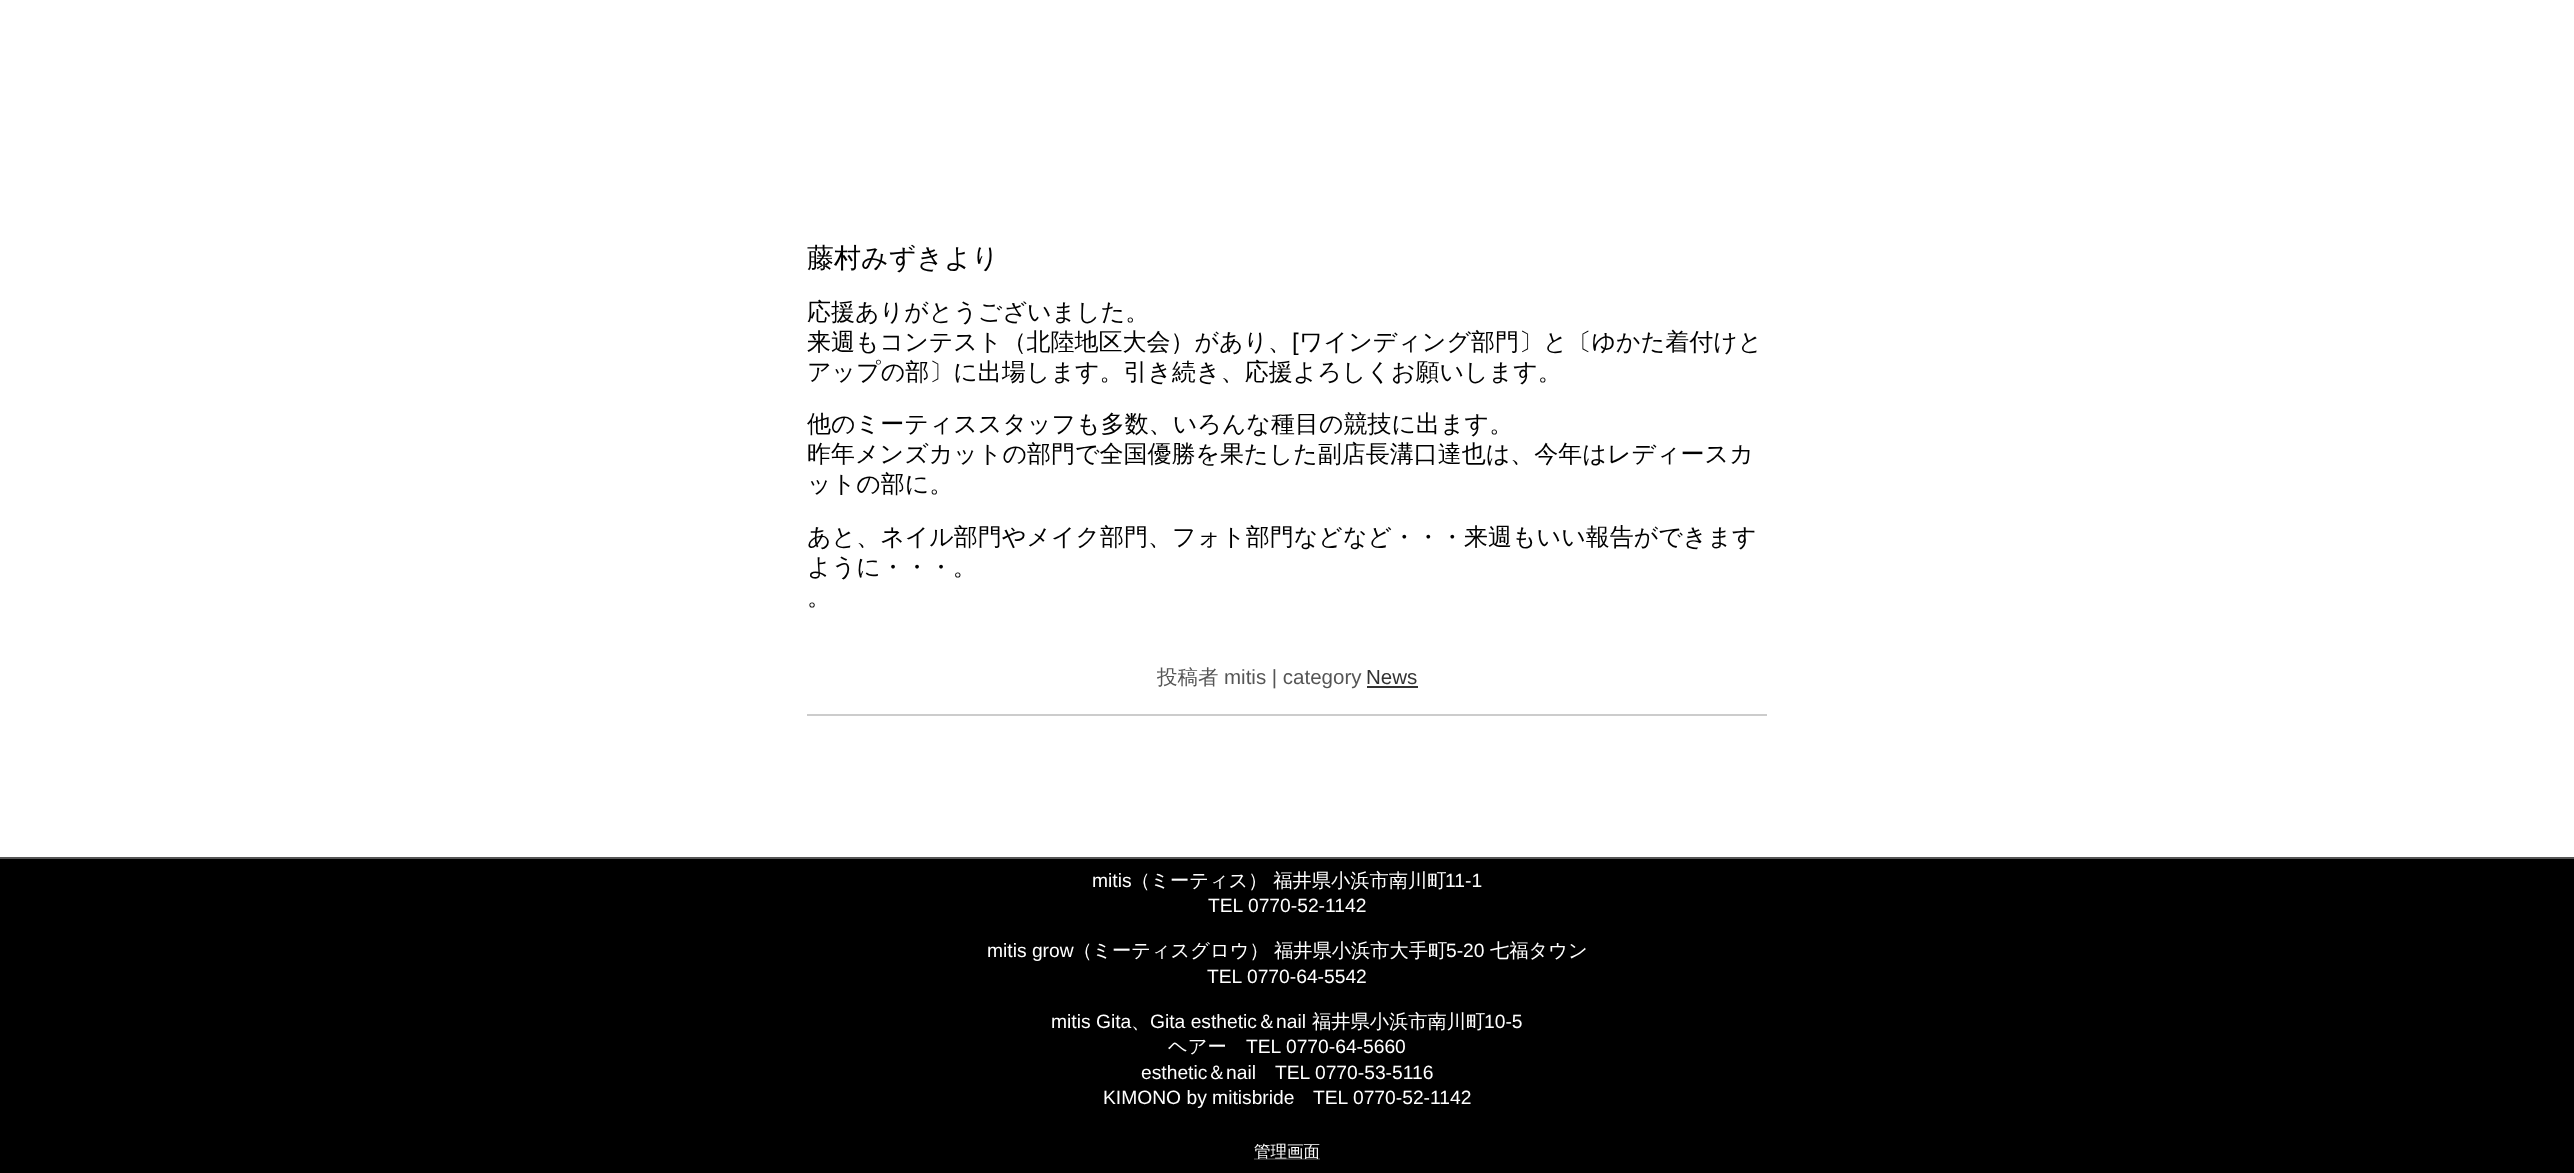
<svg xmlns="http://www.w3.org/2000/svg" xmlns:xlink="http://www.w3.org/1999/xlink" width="2574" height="1173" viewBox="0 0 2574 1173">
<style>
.cls-1{font:500 27px WenQuanYi Zen Hei;fill:#000000}
.cls-2{font:500 24px WenQuanYi Zen Hei;fill:#000000}
.cls-3{font:24px Liberation Sans;fill:#000000}
.cls-4{font:500 20.5px WenQuanYi Zen Hei;fill:#555555}
.cls-5{font:20.5px Liberation Sans;fill:#555555}
.cls-6{font:20.5px Liberation Sans;fill:#333333}
.cls-7{font:19.25px Liberation Sans;fill:#ffffff}
.cls-8{font:500 19.25px WenQuanYi Zen Hei;fill:#ffffff}
.cls-9{font:500 16.5px WenQuanYi Zen Hei;fill:#ffffff}
</style>
<rect width="100%" height="100%" fill="#ffffff"/>
<rect fill="#cccccc" x="807" y="714" width="960" height="2"/>
<rect fill="#333333" x="1367" y="686" width="51" height="2"/>
<rect fill="#000000" x="0" y="859" width="2574" height="314"/>
<rect fill="#555555" x="0" y="857" width="2574" height="2"/>
<rect fill="#333333" x="1254" y="1158" width="66" height="2"/>
<text class="cls-1" x="807" y="267">藤村みずきより</text>
<text class="cls-2"><tspan x="807" y="320">応援ありがとうございました。</tspan><tspan x="807" y="350">来週もコンテスト（北陸地区大会）があり、</tspan></text>
<text class="cls-3" x="1292" y="350">[</text>
<text class="cls-2" x="1299" y="350">ワインディング部門〕と〔ゆかた着付けと</text>
<text class="cls-2" x="807" y="380">アップの部〕に出場します。引き続き、応援よろしくお願いします。</text>
<text class="cls-2"><tspan x="807" y="432">他のミーティススタッフも多数、いろんな種目の競技に出ます。</tspan><tspan x="807" y="462">昨年メンズカットの部門で全国優勝を果たした副店長溝口達也は、今年はレディースカ</tspan><tspan x="807" y="492">ットの部に。</tspan></text>
<text class="cls-2"><tspan x="807" y="545">あと、ネイル部門やメイク部門、フォト部門などなど・・・来週もいい報告ができます</tspan><tspan x="807" y="575">ように・・・。</tspan><tspan x="807" y="605">。</tspan></text>
<text class="cls-4" x="1157" y="684">投稿者</text>
<text class="cls-5" x="1224" y="684">mitis | category</text>
<text class="cls-6" x="1366" y="684">News</text>
<text class="cls-7" x="1092" y="887">mitis</text>
<text class="cls-8" x="1131" y="887">（ミーティス） 福井県小浜市南川町</text>
<text class="cls-7" x="1445" y="887">11-1</text>
<text class="cls-7" x="1208" y="912">TEL 0770-52-1142</text>
<text class="cls-7" x="987" y="957">mitis grow</text>
<text class="cls-8" x="1073" y="957">（ミーティスグロウ）</text>
<text class="cls-8" x="1274" y="957">福井県小浜市大手町</text>
<text class="cls-7" x="1446" y="957">5-20</text>
<text class="cls-8" x="1490" y="957">七福タウン</text>
<text class="cls-7" x="1207" y="983">TEL 0770-64-5542</text>
<text class="cls-7" x="1051" y="1028">mitis Gita</text>
<text class="cls-8" x="1131" y="1028">、</text>
<text class="cls-7" x="1150" y="1028">Gita esthetic</text>
<text class="cls-8" x="1257" y="1028">＆</text>
<text class="cls-7" x="1276" y="1028">nail</text>
<text class="cls-8" x="1312" y="1028">福井県小浜市南川町</text>
<text class="cls-7" x="1484" y="1028">10-5</text>
<text class="cls-8" x="1168" y="1053">ヘアー</text>
<text class="cls-7" x="1246" y="1053">TEL 0770-64-5660</text>
<text class="cls-7" x="1141" y="1079">esthetic</text>
<text class="cls-8" x="1207" y="1079">＆</text>
<text class="cls-7" x="1226" y="1079">nail</text>
<text class="cls-7" x="1275" y="1079">TEL 0770-53-5116</text>
<text class="cls-7" x="1103" y="1104">KIMONO by mitisbride</text>
<text class="cls-7" x="1313" y="1104">TEL 0770-52-1142</text>
<text class="cls-9" x="1254" y="1157">管理画面</text>
</svg>
